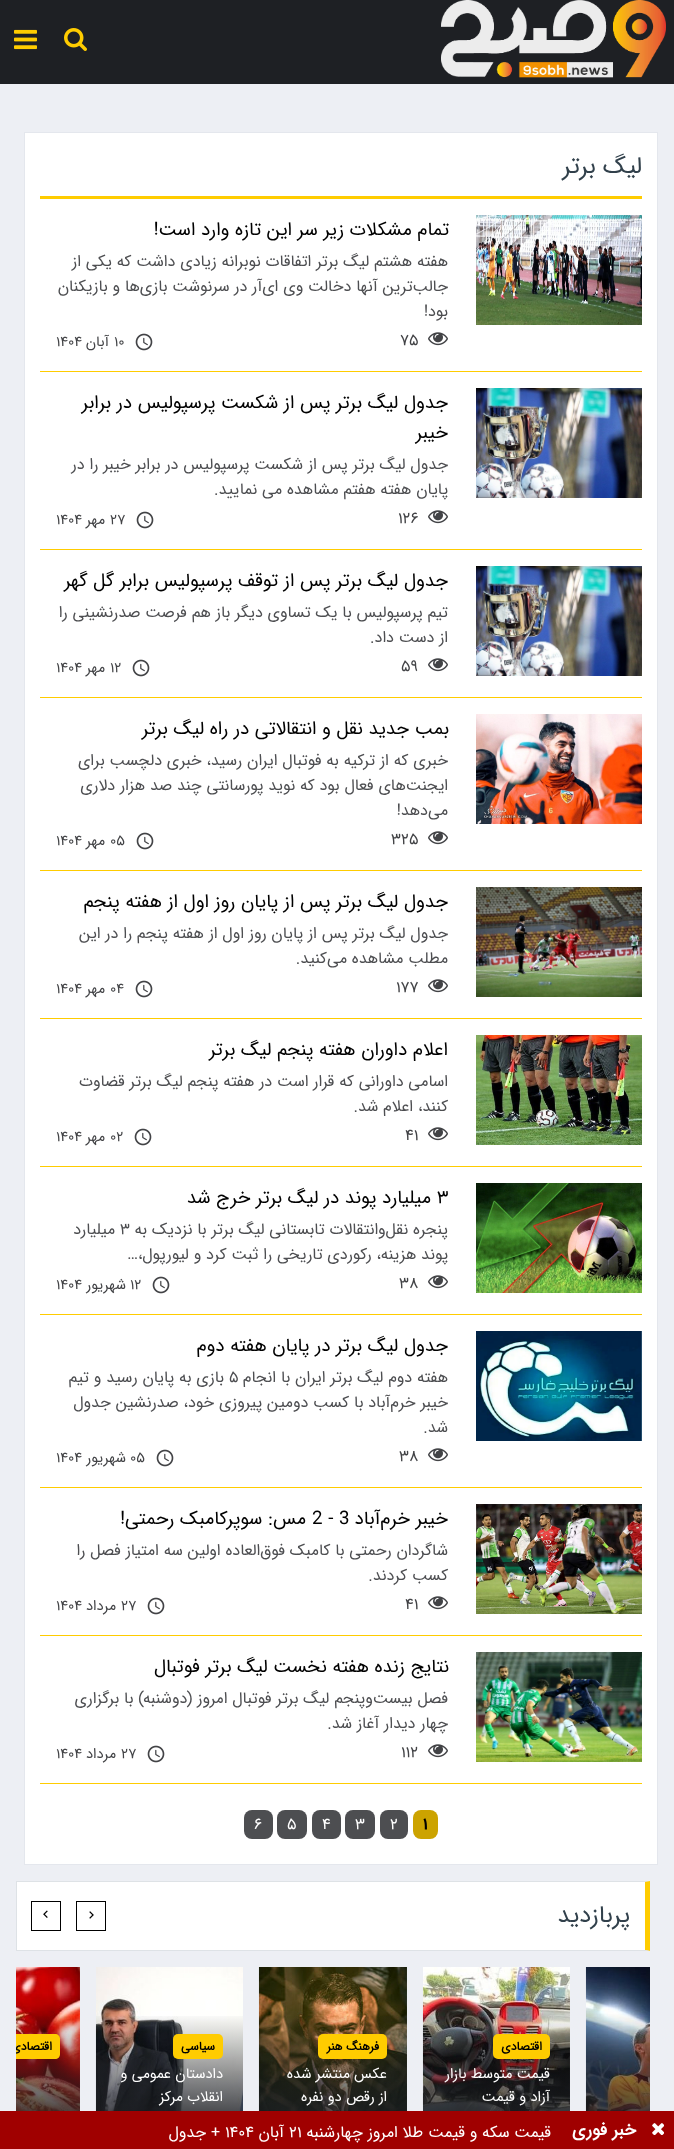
<svg xmlns="http://www.w3.org/2000/svg" xmlns:xlink="http://www.w3.org/1999/xlink" width="674" height="2149" viewBox="0 0 674 2149">
<style>
.cls-1{font:24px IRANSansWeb;direction:rtl;fill:#31404b}
.cls-2{font:18.75px IRANSansWeb;direction:rtl;fill:#000000}
.cls-3{font:16px IRANSansWeb;direction:rtl;fill:#4d4e51}
.cls-4{font:16px IRANSansWeb;fill:#424346}
.cls-5{font:14.5px IRANSansWeb;fill:#424346}
.cls-6{font:14.5px IRANSansWeb;direction:rtl;fill:#424346}
.cls-7{font:18.75px IRANSansWeb;fill:#000000}
.cls-8{font:16px IRANSansWeb;fill:#4d4e51}
.cls-9{font:bold 16px IRANSansWeb;fill:#000000}
.cls-10{font:16px IRANSansWeb;fill:#ffffff}
.cls-11{font:bold 12px 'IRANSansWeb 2';direction:rtl;fill:#000000}
.cls-12{font:14.5px IRANSansWeb;direction:rtl;fill:#ffffff}
.cls-13{font:bold 17.5px 'IRANSansWeb 2';direction:rtl;fill:#ffffff}
.cls-14{font:16px IRANSansWeb;direction:rtl;fill:#ffffff}
</style>
<defs>
<linearGradient id="g1" gradientUnits="userSpaceOnUse" x1="496" y1="2013" x2="496" y2="2138"><stop offset="0" stop-color="#1e2024" stop-opacity="0"/><stop offset="1" stop-color="#1e2024"/></linearGradient>
<linearGradient id="g2" gradientUnits="userSpaceOnUse" x1="333" y1="2013" x2="333" y2="2138"><stop offset="0" stop-color="#1e2024" stop-opacity="0"/><stop offset="1" stop-color="#1e2024"/></linearGradient>
<linearGradient id="g3" gradientUnits="userSpaceOnUse" x1="169" y1="2013" x2="169" y2="2138"><stop offset="0" stop-color="#1e2024" stop-opacity="0"/><stop offset="1" stop-color="#1e2024"/></linearGradient>
<linearGradient id="g4" gradientUnits="userSpaceOnUse" x1="6.5" y1="2013" x2="6.5" y2="2138"><stop offset="0" stop-color="#1e2024" stop-opacity="0"/><stop offset="1" stop-color="#1e2024"/></linearGradient>
<clipPath id="clip1"><rect x="16" y="1967" width="634" height="171"/></clipPath>
</defs>
<rect width="100%" height="100%" fill="#edeff4"/>
<rect fill="#1e2024" x="0" y="0" width="674" height="84"/>
<image xlink:href="image0.png" x="441" y="0" width="225" height="78"/>
<image xlink:href="image1.png" x="64" y="28" width="23" height="23"/>
<image xlink:href="image2.png" x="14" y="29" width="23" height="21"/>
<rect fill="#ffffff" stroke="#e4e7ed" x="24.5" y="132.5" width="633" height="1732"/>
<rect fill="#ffcc00" x="40" y="196" width="602" height="3"/>
<rect fill="#ffcc00" x="40" y="371" width="602" height="1"/>
<image xlink:href="image3.png" x="476" y="215" width="166" height="110"/>
<image xlink:href="image4.png" x="428" y="332" width="20" height="14"/>
<image xlink:href="image5.png" x="135" y="333" width="18" height="18"/>
<rect fill="#ffcc00" x="40" y="549" width="602" height="1"/>
<image xlink:href="image6.png" x="476" y="388" width="166" height="110"/>
<image xlink:href="image4.png" x="428" y="510" width="20" height="14"/>
<image xlink:href="image5.png" x="136" y="511" width="18" height="18"/>
<rect fill="#ffcc00" x="40" y="697" width="602" height="1"/>
<image xlink:href="image7.png" x="476" y="566" width="166" height="110"/>
<image xlink:href="image4.png" x="428" y="658" width="20" height="14"/>
<image xlink:href="image5.png" x="132" y="659" width="18" height="18"/>
<rect fill="#ffcc00" x="40" y="870" width="602" height="1"/>
<image xlink:href="image8.png" x="476" y="714" width="166" height="110"/>
<image xlink:href="image4.png" x="428" y="831" width="20" height="14"/>
<image xlink:href="image5.png" x="136" y="832" width="18" height="18"/>
<rect fill="#ffcc00" x="40" y="1018" width="602" height="1"/>
<image xlink:href="image9.png" x="476" y="887" width="166" height="110"/>
<image xlink:href="image4.png" x="428" y="979" width="20" height="14"/>
<image xlink:href="image5.png" x="135" y="980" width="18" height="18"/>
<rect fill="#ffcc00" x="40" y="1166" width="602" height="1"/>
<image xlink:href="image10.png" x="476" y="1035" width="166" height="110"/>
<image xlink:href="image4.png" x="428" y="1127" width="20" height="14"/>
<image xlink:href="image5.png" x="134" y="1128" width="18" height="18"/>
<rect fill="#ffcc00" x="40" y="1314" width="602" height="1"/>
<image xlink:href="image11.png" x="476" y="1183" width="166" height="110"/>
<image xlink:href="image4.png" x="428" y="1275" width="20" height="14"/>
<image xlink:href="image5.png" x="152" y="1276" width="18" height="18"/>
<rect fill="#ffcc00" x="40" y="1487" width="602" height="1"/>
<image xlink:href="image12.png" x="476" y="1331" width="166" height="110"/>
<image xlink:href="image4.png" x="428" y="1448" width="20" height="14"/>
<image xlink:href="image5.png" x="156" y="1449" width="18" height="18"/>
<rect fill="#ffcc00" x="40" y="1635" width="602" height="1"/>
<image xlink:href="image13.png" x="476" y="1504" width="166" height="110"/>
<image xlink:href="image4.png" x="428" y="1596" width="20" height="14"/>
<image xlink:href="image5.png" x="147" y="1597" width="18" height="18"/>
<rect fill="#ffcc00" x="40" y="1783" width="602" height="1"/>
<image xlink:href="image14.png" x="476" y="1652" width="166" height="110"/>
<image xlink:href="image4.png" x="428" y="1744" width="20" height="14"/>
<image xlink:href="image5.png" x="147" y="1745" width="18" height="18"/>
<rect fill="#cca300" x="413" y="1810" width="25" height="29" rx="8"/>
<rect fill="#4d4e51" x="380" y="1810" width="28" height="29" rx="8"/>
<rect fill="#4d4e51" x="345" y="1810" width="30" height="29" rx="8"/>
<rect fill="#4d4e51" x="312" y="1810" width="29" height="29" rx="8"/>
<rect fill="#4d4e51" x="277" y="1810" width="30" height="29" rx="8"/>
<rect fill="#4d4e51" x="244" y="1810" width="29" height="29" rx="8"/>
<rect fill="#ffffff" x="17" y="1882" width="628" height="68"/>
<path fill="#dee2e6" d="M16 1881H650L645 1882H17Z"/>
<path fill="#ffcc00" d="M650 1881V1951L645 1950V1882Z"/>
<path fill="#dee2e6" d="M650 1951H16L17 1950H645Z"/>
<rect fill="#dee2e6" x="16" y="1881" width="1" height="70"/>
<rect fill="none" stroke="#000000" x="76.5" y="1901.5" width="29" height="29"/>
<image xlink:href="image15.png" x="89" y="1911" width="5" height="8"/>
<rect fill="none" stroke="#000000" x="31.5" y="1901.5" width="29" height="29"/>
<image xlink:href="image16.png" x="43" y="1910" width="5" height="8"/>
<image xlink:href="image17.png" x="585" y="1967" width="65" height="144"/>
<image xlink:href="image18.png" x="422" y="1967" width="148" height="144"/>
<rect fill="url(#g1)" x="423" y="2016" width="147" height="95"/>
<rect fill="#ffcc00" x="493" y="2034" width="57" height="25" rx="5"/>
<image xlink:href="image19.png" x="258" y="1967" width="149" height="144"/>
<rect fill="url(#g2)" x="259" y="2016" width="148" height="95"/>
<rect fill="#ffcc00" x="318" y="2034" width="69" height="25" rx="5"/>
<image xlink:href="image20.png" x="95" y="1967" width="148" height="144"/>
<rect fill="url(#g3)" x="96" y="2016" width="147" height="95"/>
<rect fill="#ffcc00" x="173" y="2034" width="50" height="25" rx="5"/>
<image xlink:href="image21.png" x="16" y="1967" width="64" height="144"/>
<rect fill="url(#g4)" x="16" y="2016" width="64" height="95"/>
<path fill="#ffcc00" d="M16 2034H55C58 2034 60 2036 60 2039V2054C60 2057 58 2059 55 2059H16Z"/>
<rect fill="#a00000" x="0" y="2111" width="674" height="38"/>
<image xlink:href="image22.png" x="652" y="2123" width="12" height="12"/>
<text class="cls-1" x="642" y="173">لیگ برتر</text>
<text class="cls-2" x="449" y="235">تمام مشکلات زیر سر این تازه وارد است!</text>
<text class="cls-3"><tspan x="448" y="266">هفته هشتم لیگ برتر اتفاقات نوبرانه زیادی داشت که یکی از</tspan><tspan x="448" y="291">جالب‌ترین آنها دخالت وی ای‌آر در سرنوشت بازی‌ها و بازیکنان</tspan><tspan x="448" y="316">بود!</tspan></text>
<text class="cls-4" x="400" y="345">۷۵</text>
<text class="cls-5" x="114" y="346">۱۰</text>
<text class="cls-6" x="109" y="346">آبان</text>
<text class="cls-5" x="56" y="346">۱۴۰۴</text>
<text class="cls-2"><tspan x="448" y="408">جدول لیگ برتر پس از شکست پرسپولیس در برابر</tspan><tspan x="448" y="438">خیبر</tspan></text>
<text class="cls-3"><tspan x="448" y="469">جدول لیگ برتر پس از شکست پرسپولیس در برابر خیبر را در</tspan><tspan x="448" y="494">پایان هفته هفتم مشاهده می نمایید.</tspan></text>
<text class="cls-4" x="398" y="523">۱۲۶</text>
<text class="cls-5" x="110" y="524">۲۷</text>
<text class="cls-6" x="105" y="524">مهر</text>
<text class="cls-5" x="56" y="524">۱۴۰۴</text>
<text class="cls-2" x="448" y="586">جدول لیگ برتر پس از توقف پرسپولیس برابر گل گهر</text>
<text class="cls-3"><tspan x="448" y="617">تیم پرسپولیس با یک تساوی دیگر باز هم فرصت صدرنشینی را</tspan><tspan x="448" y="642">از دست داد.</tspan></text>
<text class="cls-4" x="401" y="671">۵۹</text>
<text class="cls-5" x="110" y="672">۱۲</text>
<text class="cls-6" x="105" y="672">مهر</text>
<text class="cls-5" x="56" y="672">۱۴۰۴</text>
<text class="cls-2" x="449" y="734">بمب جدید نقل و انتقالاتی در راه لیگ برتر</text>
<text class="cls-3"><tspan x="448" y="765">خبری که از ترکیه به فوتبال ایران رسید، خبری دلچسب برای</tspan><tspan x="448" y="790">ایجنت‌های فعال بود که نوید پورسانتی چند صد هزار دلاری</tspan><tspan x="448" y="815">می‌دهد!</tspan></text>
<text class="cls-4" x="391" y="844">۳۲۵</text>
<text class="cls-5" x="110" y="845">۰۵</text>
<text class="cls-6" x="105" y="845">مهر</text>
<text class="cls-5" x="56" y="845">۱۴۰۴</text>
<text class="cls-2" x="448" y="907">جدول لیگ برتر پس از پایان روز اول از هفته پنجم</text>
<text class="cls-3"><tspan x="448" y="938">جدول لیگ برتر پس از پایان روز اول از هفته پنجم را در این</tspan><tspan x="448" y="963">مطلب مشاهده می‌کنید.</tspan></text>
<text class="cls-4" x="396" y="992">۱۷۷</text>
<text class="cls-5" x="110" y="993">۰۴</text>
<text class="cls-6" x="105" y="993">مهر</text>
<text class="cls-5" x="56" y="993">۱۴۰۴</text>
<text class="cls-2" x="448" y="1055">اعلام داوران هفته پنجم لیگ برتر</text>
<text class="cls-3"><tspan x="448" y="1086">اسامی داورانی که قرار است در هفته پنجم لیگ برتر قضاوت</tspan><tspan x="448" y="1111">کنند، اعلام شد.</tspan></text>
<text class="cls-4" x="405" y="1140">۴۱</text>
<text class="cls-5" x="110" y="1141">۰۲</text>
<text class="cls-6" x="105" y="1141">مهر</text>
<text class="cls-5" x="56" y="1141">۱۴۰۴</text>
<text class="cls-7" x="437" y="1203">۳</text>
<text class="cls-2" x="431" y="1203">میلیارد پوند در لیگ برتر خرج شد</text>
<text class="cls-3" x="448" y="1234">پنجره نقل‌وانتقالات تابستانی لیگ برتر با نزدیک به</text>
<text class="cls-8" x="120" y="1234">۳</text>
<text class="cls-3" x="115" y="1234">میلیارد</text>
<text class="cls-3" x="448" y="1259">پوند هزینه، رکوردی تاریخی را ثبت کرد و لیورپول،…</text>
<text class="cls-4" x="399" y="1288">۳۸</text>
<text class="cls-5" x="130" y="1289">۱۲</text>
<text class="cls-6" x="126" y="1289">شهریور</text>
<text class="cls-5" x="56" y="1289">۱۴۰۴</text>
<text class="cls-2" x="448" y="1351">جدول لیگ برتر در پایان هفته دوم</text>
<text class="cls-3" x="448" y="1382">هفته دوم لیگ برتر ایران با انجام</text>
<text class="cls-8" x="229" y="1382">۵</text>
<text class="cls-3" x="224" y="1382">بازی به پایان رسید و تیم</text>
<text class="cls-3"><tspan x="448" y="1407">خیبر خرم‌آباد با کسب دومین پیروزی خود، صدرنشین جدول</tspan><tspan x="448" y="1432">شد.</tspan></text>
<text class="cls-4" x="399" y="1461">۳۸</text>
<text class="cls-5" x="130" y="1462">۰۵</text>
<text class="cls-6" x="126" y="1462">شهریور</text>
<text class="cls-5" x="56" y="1462">۱۴۰۴</text>
<text class="cls-2" x="448" y="1524">خیبر خرم‌آباد</text>
<text class="cls-7" x="312" y="1524">2 - 3</text>
<text class="cls-2" x="306" y="1524">مس‌: سوپرکامبک رحمتی!</text>
<text class="cls-3"><tspan x="448" y="1555">شاگردان رحمتی با کامبک فوق‌العاده اولین سه امتیاز فصل را</tspan><tspan x="448" y="1580">کسب کردند.</tspan></text>
<text class="cls-4" x="405" y="1609">۴۱</text>
<text class="cls-5" x="121" y="1610">۲۷</text>
<text class="cls-6" x="116" y="1610">مرداد</text>
<text class="cls-5" x="56" y="1610">۱۴۰۴</text>
<text class="cls-2" x="449" y="1672">نتایج زنده هفته نخست لیگ برتر فوتبال</text>
<text class="cls-3"><tspan x="448" y="1703">فصل بیست‌وپنجم لیگ برتر فوتبال امروز (دوشنبه) با برگزاری</tspan><tspan x="448" y="1728">چهار دیدار آغاز شد.</tspan></text>
<text class="cls-4" x="401" y="1757">۱۱۲</text>
<text class="cls-5" x="121" y="1758">۲۷</text>
<text class="cls-6" x="116" y="1758">مرداد</text>
<text class="cls-5" x="56" y="1758">۱۴۰۴</text>
<text class="cls-9" x="423" y="1829">۱</text>
<text class="cls-10" x="390" y="1829">۲</text>
<text class="cls-10" x="355" y="1829">۳</text>
<text class="cls-10" x="322" y="1829">۴</text>
<text class="cls-10" x="287" y="1829">۵</text>
<text class="cls-10" x="254" y="1829">۶</text>
<text class="cls-1" x="630" y="1922">پربازدید‍</text>
<text class="cls-11" x="542" y="2050">اقتصادی</text>
<text class="cls-12"><tspan x="550" y="2078">قیمت متوسط بازار</tspan><tspan x="550" y="2101">آزاد و قیمت</tspan></text>
<text class="cls-11" x="379" y="2050">فرهنگ هنر</text>
<text class="cls-12"><tspan x="387" y="2078">عکس منتشر شده</tspan><tspan x="387" y="2101">از رقص دو نفره</tspan></text>
<text class="cls-11" x="215" y="2050">سیاسی</text>
<text class="cls-12"><tspan x="223" y="2078">دادستان عمومی و</tspan><tspan x="223" y="2101">انقلاب مرکز</tspan></text>
<g clip-path="url(#clip1)">
<text class="cls-11" x="52" y="2050">اقتصادی</text>
</g>
<text class="cls-13" x="636" y="2135">خبر فوری</text>
<text class="cls-14" x="551" y="2137">قیمت سکه و قیمت طلا امروز چهارشنبه</text>
<text class="cls-10" x="289" y="2137">۲۱</text>
<text class="cls-14" x="284" y="2137">آبان</text>
<text class="cls-10" x="225" y="2137">۱۴۰۴</text>
<text class="cls-14" x="220" y="2137">+ جدول</text>
</svg>
